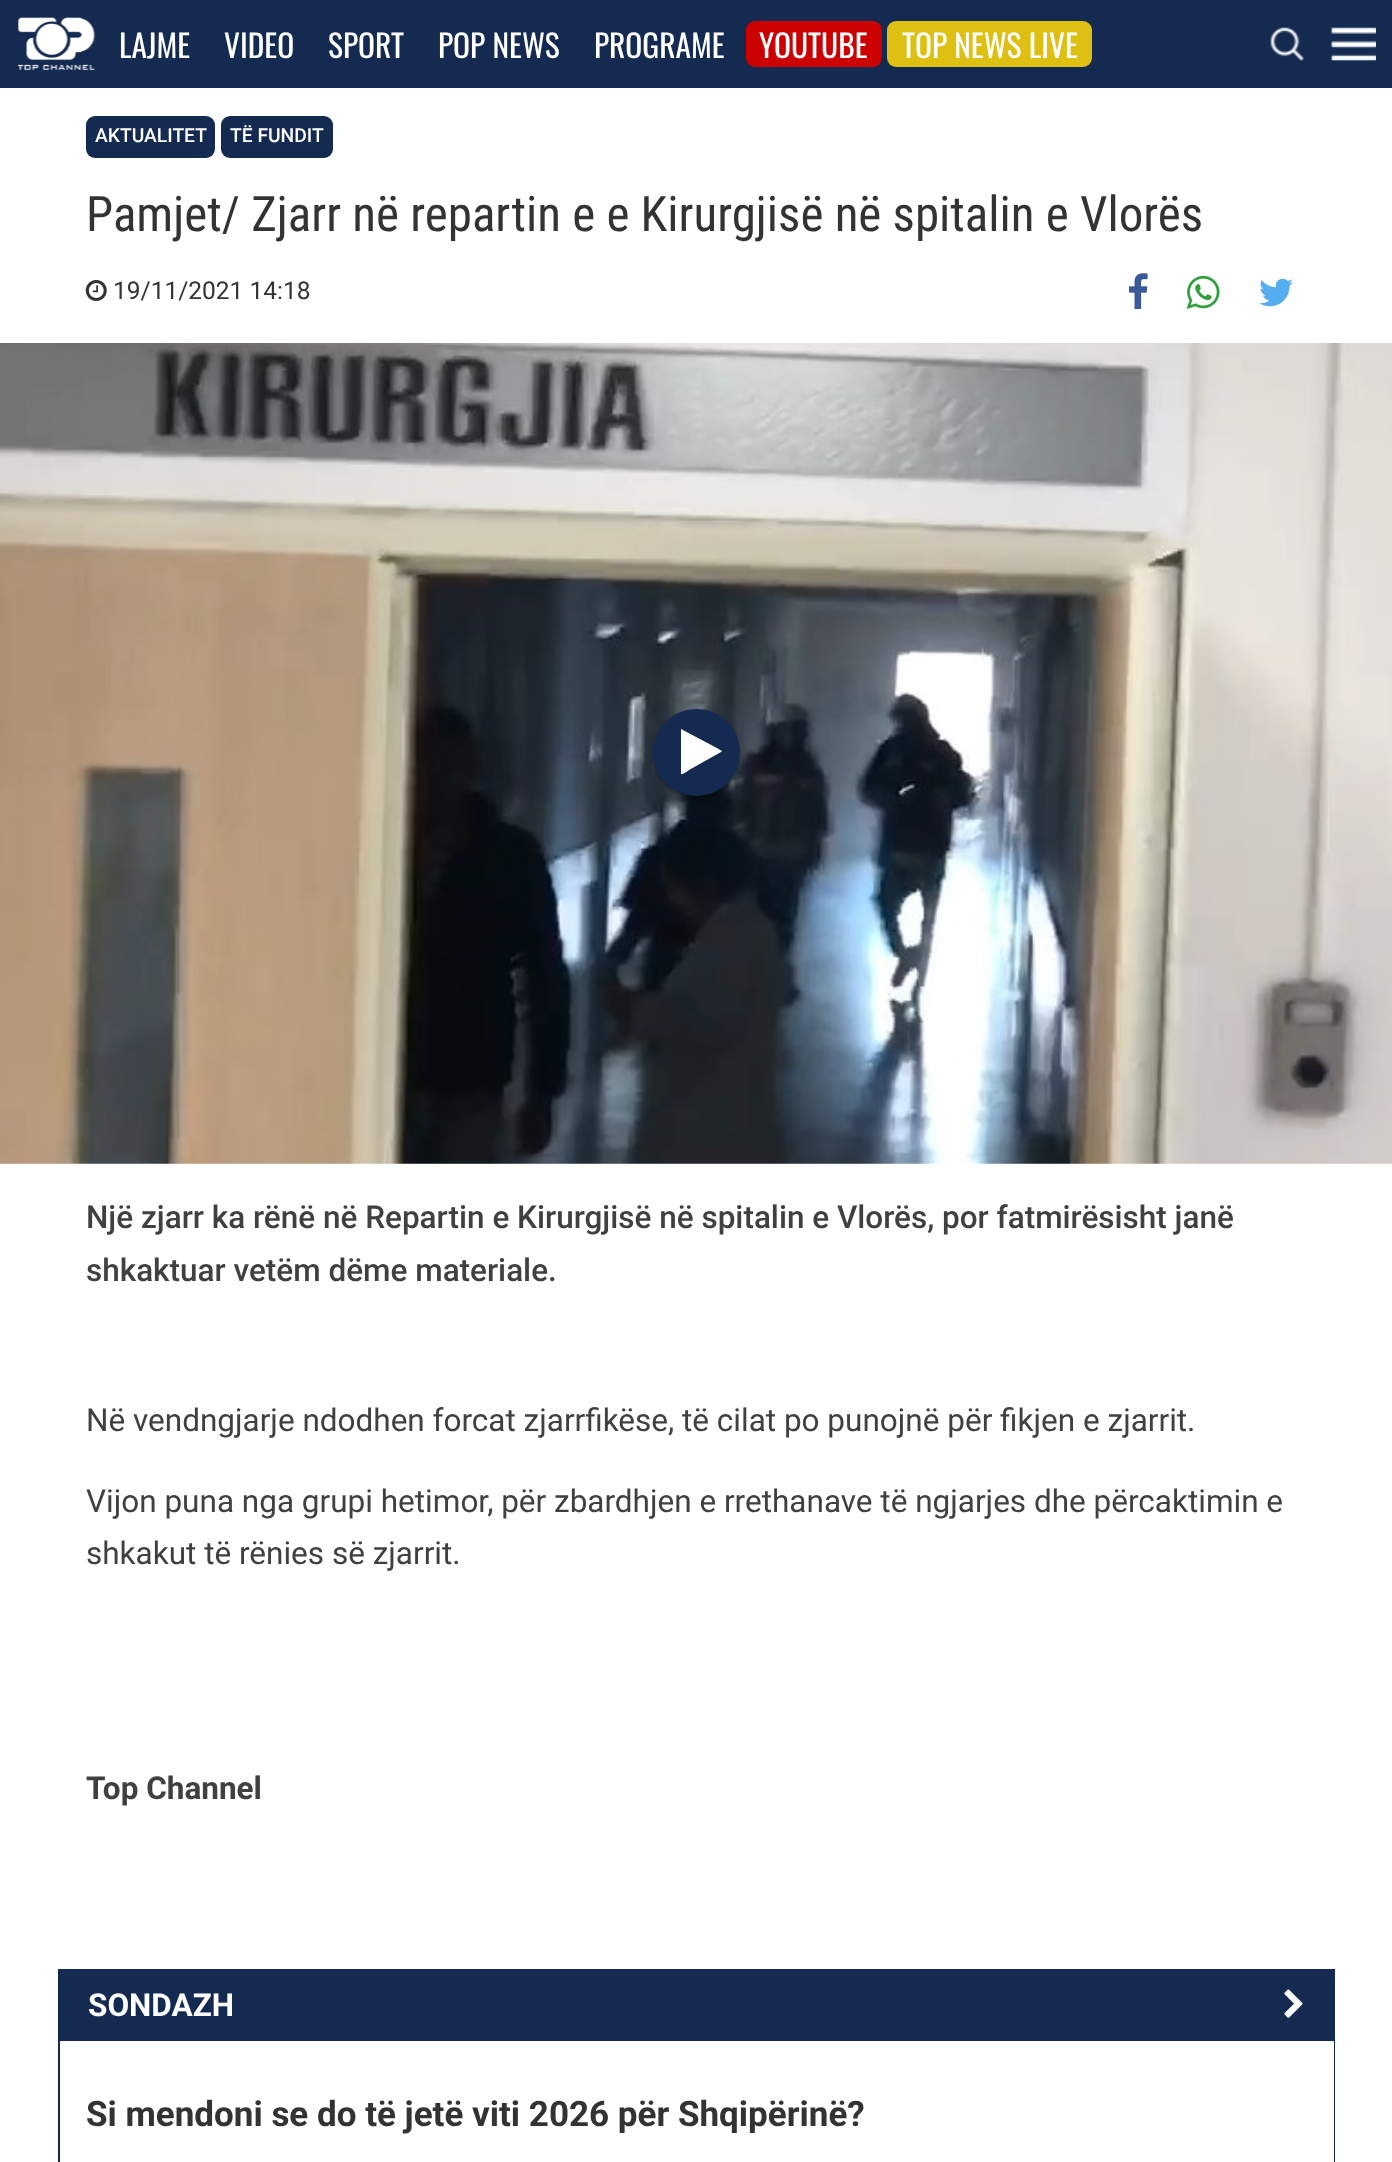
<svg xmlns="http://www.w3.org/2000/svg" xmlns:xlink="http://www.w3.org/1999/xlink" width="1392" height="2162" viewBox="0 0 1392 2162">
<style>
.cls-1{font:31.5px Oswald;fill:#ffffff}
.cls-2{font:500 19.25px Roboto;fill:#ffffff}
.cls-3{font:49px Roboto Condensed;fill:#333333}
.cls-4{font:24.5px Roboto;fill:#333333}
.cls-5{font:500 31.5px Roboto;fill:#404040}
.cls-6{font:31.5px Roboto;fill:#404040}
.cls-7{font:bold 31.5px Roboto;fill:#404040}
.cls-8{font:bold 31.5px Roboto;fill:#ffffff}
.cls-9{font:bold 35px Roboto;fill:#333333}
</style>
<rect width="100%" height="100%" fill="#ffffff"/>
<rect fill="#142a51" x="0" y="0" width="1392" height="88"/>
<image xlink:href="image0.png" x="18" y="17" width="77" height="53"/>
<rect fill="#cc0000" x="746" y="21" width="136" height="46" rx="9"/>
<rect fill="#dec013" x="887" y="21" width="205" height="46" rx="9"/>
<image xlink:href="image1.png" x="1270" y="27" width="34" height="34"/>
<image xlink:href="image2.png" x="1331" y="27" width="45" height="34"/>
<rect fill="#142a51" x="86" y="116" width="129" height="42" rx="9"/>
<rect fill="#142a51" x="221" y="116" width="112" height="42" rx="9"/>
<image xlink:href="image3.png" x="85" y="280" width="22" height="21"/>
<image xlink:href="image4.png" x="1129" y="273" width="19" height="36"/>
<image xlink:href="image5.png" x="1186" y="275" width="34" height="35"/>
<image xlink:href="image6.png" x="1259" y="278" width="34" height="29"/>
<image xlink:href="image7.png" x="0" y="343" width="1392" height="821"/>
<rect fill="#000000" fill-opacity="0.12" filter="blur(4.5px)" x="653" y="711" width="87" height="87" rx="43.5"/>
<rect fill="#000000" fill-opacity="0.2" filter="blur(1px)" x="656" y="718" width="81" height="80" rx="40"/>
<rect fill="#000000" fill-opacity="0.14" filter="blur(2px)" x="653" y="712" width="87" height="88" rx="43.5"/>
<circle fill="#142a51" cx="696.5" cy="752.5" r="43.5"/>
<path fill="#ffffff" d="M721 752L689 770C688 771 682 775 681 774V729L715 747L722 751Z"/>
<rect fill="none" stroke="#142a51" stroke-width="2" x="59" y="1970" width="1275" height="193"/>
<rect fill="#142a51" x="60" y="1971" width="1273" height="70"/>
<image xlink:href="image8.png" x="1284" y="1989" width="19" height="29"/>
<rect fill="#ffffff" x="1333" y="2041" width="1" height="121"/>
<text class="cls-1" x="119" y="58">LAJME</text>
<text class="cls-1" x="224" y="58">VIDEO</text>
<text class="cls-1" x="328" y="58">SPORT</text>
<text class="cls-1" x="438" y="58">POP NEWS</text>
<text class="cls-1" x="594" y="58">PROGRAME</text>
<text class="cls-1" x="759" y="58">YOUTUBE</text>
<text class="cls-1" x="902" y="58">TOP NEWS LIVE</text>
<text class="cls-2" x="95" y="142">AKTUALITET</text>
<text class="cls-2" x="230" y="142">TË FUNDIT</text>
<text class="cls-3" x="86" y="231">Pamjet/ Zjarr në repartin e e Kirurgjisë në spitalin e Vlorës</text>
<text class="cls-4" x="113" y="299">19/11/2021 14:18</text>
<text class="cls-5"><tspan x="86" y="1228">Një zjarr ka rënë në Repartin e Kirurgjisë në spitalin e Vlorës, por fatmirësisht janë</tspan><tspan x="86" y="1281">shkaktuar vetëm dëme materiale.</tspan></text>
<text class="cls-6" x="86" y="1431">Në vendngjarje ndodhen forcat zjarrfikëse, të cilat po punojnë për fikjen e zjarrit.</text>
<text class="cls-6"><tspan x="86" y="1512">Vijon puna nga grupi hetimor, për zbardhjen e rrethanave të ngjarjes dhe përcaktimin e</tspan><tspan x="86" y="1564">shkakut të rënies së zjarrit.</tspan></text>
<text class="cls-7" x="86" y="1799">Top Channel</text>
<text class="cls-8" x="88" y="2016">SONDAZH</text>
<text class="cls-9" x="86" y="2126">Si mendoni se do të jetë viti 2026 për Shqipërinë?</text>
</svg>
